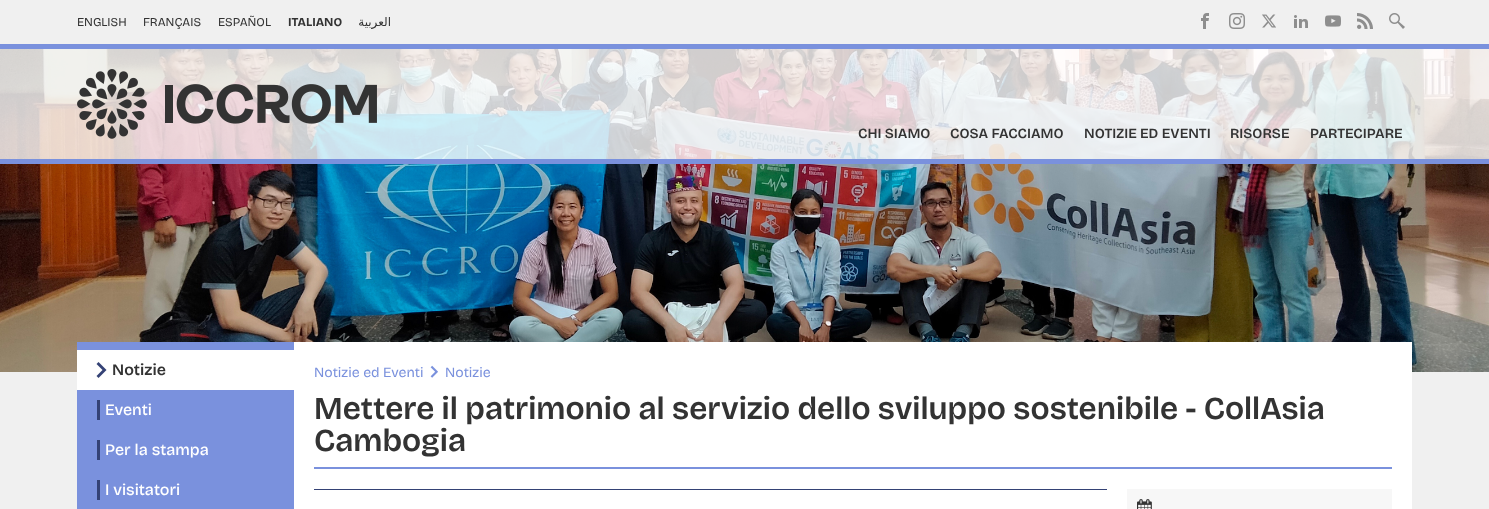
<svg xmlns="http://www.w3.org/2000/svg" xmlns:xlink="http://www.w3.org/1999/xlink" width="1489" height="509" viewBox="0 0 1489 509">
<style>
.cls-1{font:12px 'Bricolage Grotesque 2';fill:#333333}
.cls-2{font:bold 12px Bricolage Grotesque;fill:#333333}
.cls-3{font:12px DejaVu Sans;direction:rtl;fill:#333333}
.cls-4{font:600 14px 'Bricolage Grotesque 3';fill:#333333}
.cls-5{font:600 16px Bricolage Grotesque;fill:#333333}
.cls-6{font:500 16px Bricolage Grotesque;fill:#ffffff}
.cls-7{font:14px Bricolage Grotesque;fill:#7a91dd}
.cls-8{font:600 32px 'Bricolage Grotesque 2';fill:#333333}
</style>
<rect width="100%" height="100%" fill="#f0f0f0"/>
<rect fill="#7a91dd" x="0" y="44" width="1489" height="5"/>
<image xlink:href="image0.png" x="1201" y="13" width="8" height="16"/>
<image xlink:href="image1.png" x="1229" y="13" width="16" height="16"/>
<image xlink:href="image2.png" x="1262" y="14" width="14" height="14"/>
<image xlink:href="image3.png" x="1294" y="15" width="14" height="13"/>
<image xlink:href="image4.png" x="1325" y="15" width="16" height="12"/>
<image xlink:href="image5.png" x="1357" y="13" width="16" height="16"/>
<image xlink:href="image6.png" x="1389" y="13" width="16" height="16"/>
<image xlink:href="image8.png" x="0" y="49" width="1489" height="323"/>
<rect fill="#ffffff" fill-opacity="0.8" x="0" y="49" width="1489" height="110"/>
<rect fill="#7a91dd" x="0" y="159" width="1489" height="5"/>
<image xlink:href="image7.png" x="77" y="69" width="300" height="70"/>
<rect fill="#7a91dd" x="77" y="342" width="217" height="167"/>
<rect fill="#ffffff" x="77" y="350" width="217" height="40"/>
<image xlink:href="image9.png" x="96" y="362" width="11" height="16"/>
<rect fill="#344275" x="97" y="400" width="3" height="20"/>
<rect fill="#344275" x="97" y="440" width="3" height="20"/>
<rect fill="#344275" x="97" y="480" width="3" height="20"/>
<rect fill="#ffffff" x="294" y="342" width="1118" height="167"/>
<rect fill="#7a91dd" x="314" y="467" width="1078" height="2"/>
<image xlink:href="image10.png" x="430" y="365" width="8" height="13"/>
<rect fill="#344275" x="314" y="489" width="793" height="1"/>
<rect fill="#f7f7f7" x="1127" y="489" width="265" height="20"/>
<image xlink:href="image11.png" x="1137" y="499" width="15" height="10"/>
<text class="cls-1" x="77" y="26">ENGLISH</text>
<text class="cls-1" x="143" y="26">FRANÇAIS</text>
<text class="cls-1" x="218" y="26">ESPAÑOL</text>
<text class="cls-2" x="288" y="26">ITALIANO</text>
<text class="cls-3" x="391" y="26">العربية</text>
<text class="cls-4" x="858" y="138">CHI SIAMO</text>
<text class="cls-4" x="950" y="138">COSA FACCIAMO</text>
<text class="cls-4" x="1084" y="138">NOTIZIE ED EVENTI</text>
<text class="cls-4" x="1230" y="138">RISORSE</text>
<text class="cls-4" x="1310" y="138">PARTECIPARE</text>
<text class="cls-5" x="112" y="375">Notizie</text>
<text class="cls-6" x="105" y="415">Eventi</text>
<text class="cls-6" x="105" y="455">Per la stampa</text>
<text class="cls-6" x="105" y="495">I visitatori</text>
<text class="cls-7" x="314" y="377">Notizie ed Eventi</text>
<text class="cls-7" x="445" y="377">Notizie</text>
<text class="cls-8"><tspan x="314" y="419">Mettere il patrimonio al servizio dello sviluppo sostenibile - CollAsia</tspan><tspan x="314" y="451">Cambogia</tspan></text>
</svg>
